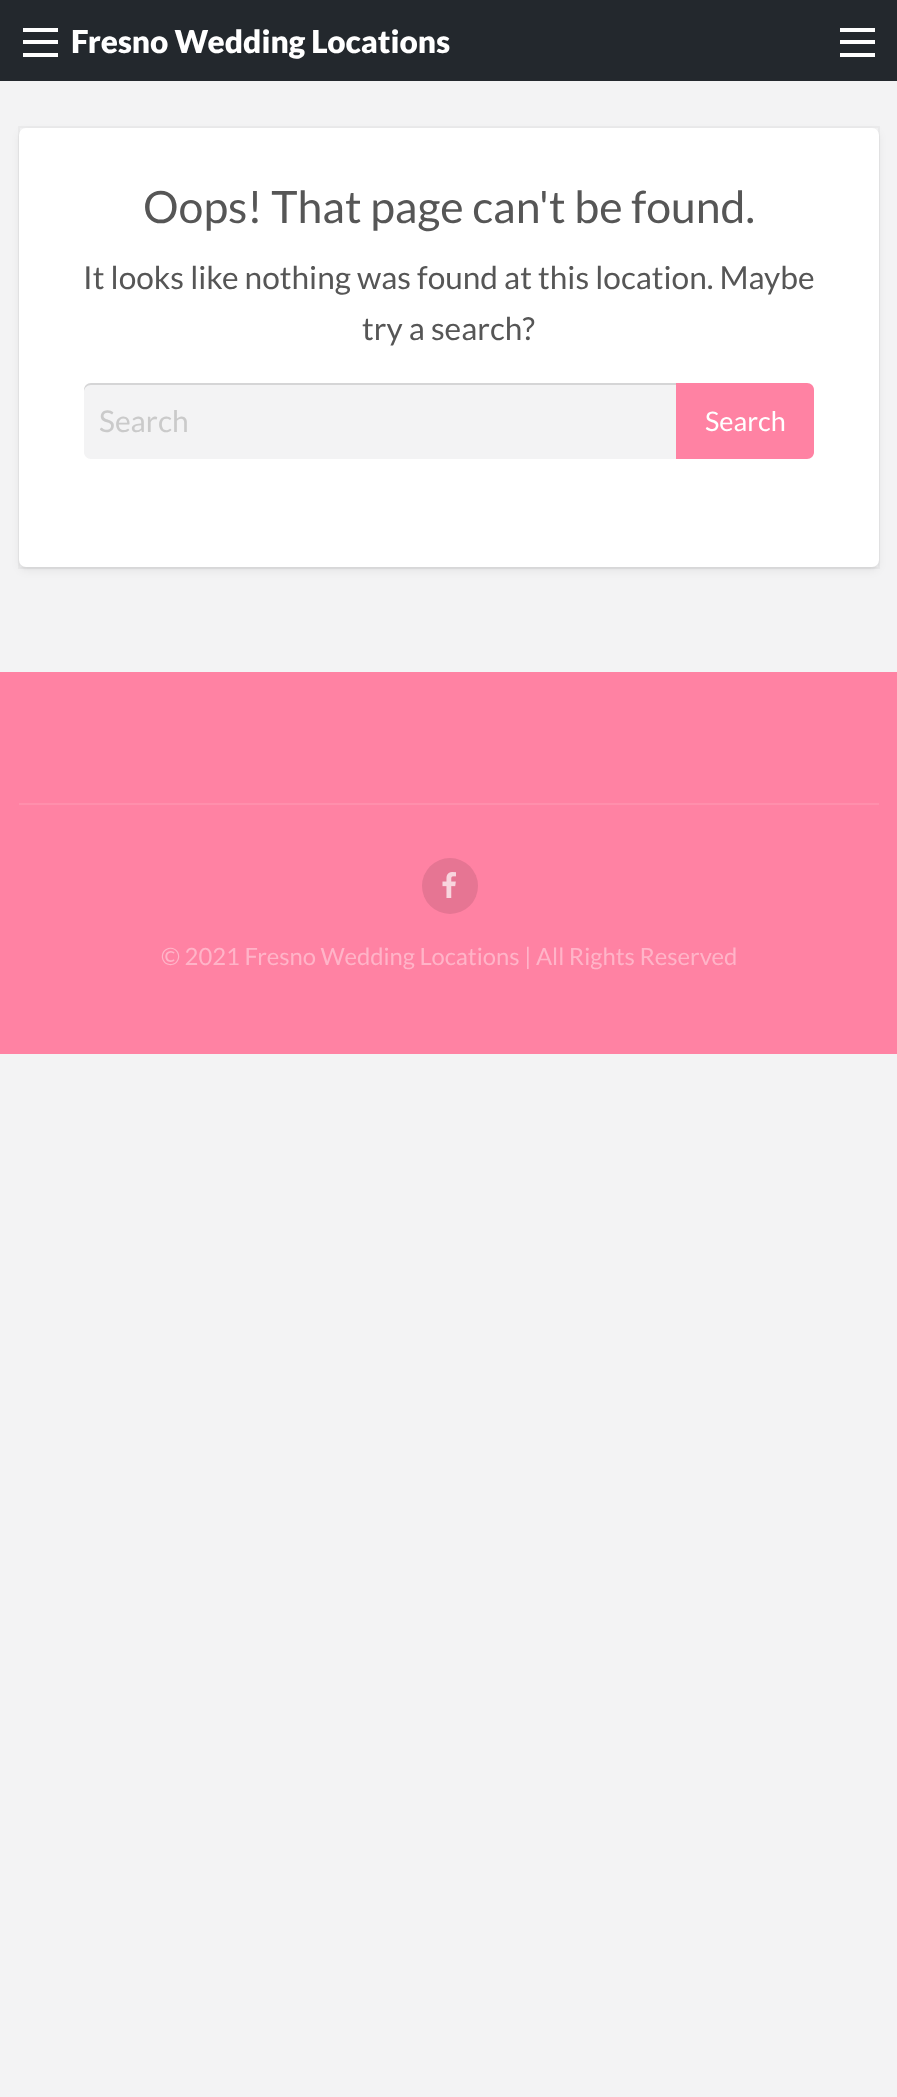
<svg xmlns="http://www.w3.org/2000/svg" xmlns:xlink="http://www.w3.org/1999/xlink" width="897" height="2097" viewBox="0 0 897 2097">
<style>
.cls-1{font:900 31.6px Lato;fill:#ffffff}
.cls-2{font:44.6px Lato;fill:#565656}
.cls-3{font:31.6px Lato;fill:#565656}
.cls-4{font:30px Lato;fill:#cacaca}
.cls-5{font:27px Lato;fill:#ffffff}
.cls-6{font:23.8px Lato;fill:#ffb4c8}
</style>
<rect width="100%" height="100%" fill="#f3f3f4"/>
<rect fill="#23282d" x="0" y="0" width="897" height="81"/>
<rect fill="#fefefe" x="23" y="53" width="35" height="4"/>
<rect fill="#fefefe" x="23" y="40" width="35" height="4"/>
<rect fill="#fefefe" x="23" y="28" width="35" height="4"/>
<rect fill="#fefefe" x="840" y="53" width="35" height="4"/>
<rect fill="#fefefe" x="840" y="40" width="35" height="4"/>
<rect fill="#fefefe" x="840" y="28" width="35" height="4"/>
<rect fill="#000000" fill-opacity="0.05" filter="blur(4.5px)" x="19" y="131" width="860" height="440" rx="7"/>
<rect fill="#000000" fill-opacity="0.05" filter="blur(1px)" x="19" y="130" width="860" height="439" rx="7"/>
<rect fill="none" stroke="#000000" stroke-opacity="0.03" stroke-width="2" x="19" y="127" width="860" height="441"/>
<rect fill="#ffffff" x="19" y="128" width="860" height="439" rx="7"/>
<path fill="#f3f3f4" d="M91 383H676V459H91C87 459 84 456 84 452V390C84 386 87 383 91 383Z"/>
<path fill="#000000" fill-opacity="0.12" d="M91 385H676V383H91C87 383 84 386 84 390V392C84 388 87 385 91 385Z"/>
<path fill="#ff82a3" d="M676 383H807C811 383 814 386 814 390V452C814 456 811 459 807 459H676Z"/>
<rect fill="#ff82a3" x="0" y="672" width="897" height="382"/>
<rect fill="#ff8fac" x="19" y="803" width="860" height="2"/>
<circle fill="#e67593" cx="450" cy="886" r="28"/>
<image xlink:href="image0.png" x="442" y="872" width="14" height="26"/>
<text class="cls-1" x="71" y="53">Fresno Wedding Locations</text>
<text class="cls-2" x="143" y="223">Oops! That page can't be found.</text>
<text class="cls-3" x="83" y="289">It looks like nothing was found at this location. Maybe</text>
<text class="cls-3" x="362" y="340">try a search?</text>
<text class="cls-4" x="99" y="432">Search</text>
<text class="cls-5" x="705" y="431">Search</text>
<text class="cls-6" x="161" y="965">© 2021 Fresno Wedding Locations | All Rights Reserved</text>
</svg>
